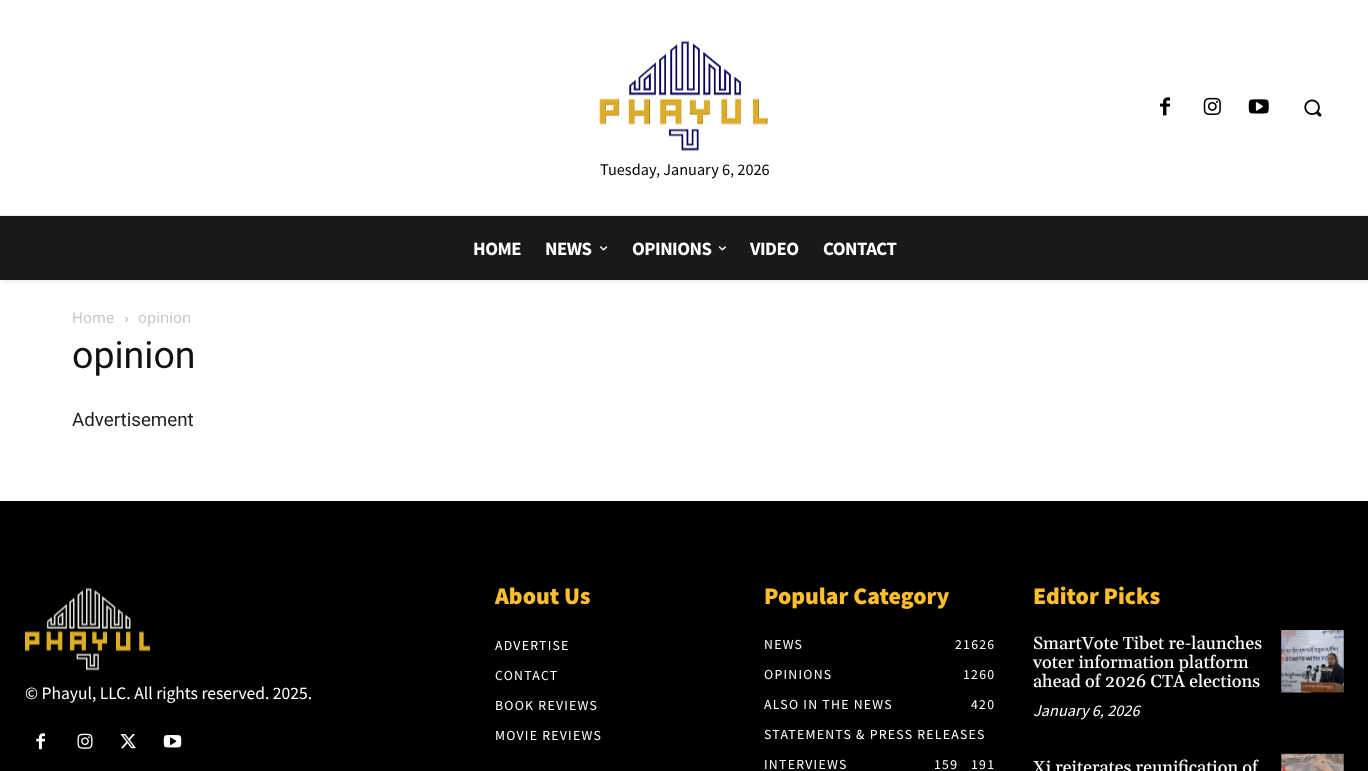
<svg xmlns="http://www.w3.org/2000/svg" xmlns:xlink="http://www.w3.org/1999/xlink" width="1368" height="771" viewBox="0 0 1368 771">
<style>
.cls-1{font:16.25px Source Sans Pro;fill:#000000}
.cls-2{font:bold 18.75px Source Sans Pro;letter-spacing:-0.5px;fill:#ffffff}
.cls-3{font:15px Open Sans;fill:#c3c3c3}
.cls-4{font:37.5px Roboto;fill:#111111}
.cls-5{font:18.75px Roboto;fill:#222222}
.cls-6{font:17.5px Source Sans Pro;fill:#ffffff}
.cls-7{font:900 23.75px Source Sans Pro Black;fill:#febe2b}
.cls-8{font:13.75px Source Sans Pro;letter-spacing:1.25px;fill:#ffffff}
.cls-9{font:500 17.5px Gelasio;fill:#ffffff}
.cls-10{font:italic 16.25px Source Sans Pro;fill:#ffffff}
</style>
<defs>
<clipPath id="clip1"><rect x="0" y="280" width="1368" height="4"/></clipPath>
</defs>
<rect width="100%" height="100%" fill="#ffffff"/>
<image xlink:href="image0.png" x="1160" y="97" width="10" height="19"/>
<image xlink:href="image1.png" x="1203" y="97" width="18" height="18"/>
<image xlink:href="image2.png" x="1248" y="99" width="21" height="15"/>
<image xlink:href="image3.png" x="1304" y="99" width="18" height="18"/>
<image xlink:href="image4.png" x="599" y="40" width="169" height="111"/>
<rect fill="#eaeaea" x="0" y="215" width="1368" height="1"/>
<g clip-path="url(#clip1)">
<rect fill="#000000" fill-opacity="0.06" filter="blur(2.5px)" x="1" y="180" width="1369" height="103"/>
</g>
<rect fill="#191919" x="0" y="216" width="1368" height="64"/>
<image xlink:href="image5.png" x="600" y="246" width="8" height="5"/>
<image xlink:href="image6.png" x="718" y="246" width="8" height="5"/>
<image xlink:href="image7.png" x="125" y="316" width="4" height="7"/>
<rect fill="#000000" x="0" y="501" width="1368" height="270"/>
<image xlink:href="image8.png" x="25" y="588" width="125" height="83"/>
<image xlink:href="image9.png" x="36" y="733" width="9" height="17"/>
<image xlink:href="image10.png" x="77" y="733" width="16" height="16"/>
<image xlink:href="image11.png" x="120" y="734" width="16" height="15"/>
<image xlink:href="image12.png" x="163" y="735" width="19" height="13"/>
<image xlink:href="image13.png" x="1281" y="630" width="63" height="63"/>
<image xlink:href="image14.png" x="1281" y="753" width="63" height="18"/>
<text class="cls-1" x="600" y="175">Tuesday, January 6, 2026</text>
<text class="cls-2" x="473" y="255">HOME</text>
<text class="cls-2" x="545" y="255">NEWS</text>
<text class="cls-2" x="632" y="255">OPINIONS</text>
<text class="cls-2" x="750" y="255">VIDEO</text>
<text class="cls-2" x="823" y="255">CONTACT</text>
<text class="cls-3" x="72" y="323">Home</text>
<text class="cls-3" x="138" y="323">opinion</text>
<text class="cls-4" x="72" y="368">opinion</text>
<text class="cls-5" x="72" y="426">Advertisement</text>
<text class="cls-6" x="25" y="699">© Phayul, LLC. All rights reserved. 2025.</text>
<text class="cls-7" x="495" y="604">About Us</text>
<text class="cls-8" x="495" y="650">ADVERTISE</text>
<text class="cls-8" x="495" y="680">CONTACT</text>
<text class="cls-8" x="495" y="710">BOOK REVIEWS</text>
<text class="cls-8" x="495" y="740">MOVIE REVIEWS</text>
<text class="cls-7" x="764" y="604">Popular Category</text>
<text class="cls-8" x="764" y="649">NEWS</text>
<text class="cls-8" x="955" y="649">21626</text>
<text class="cls-8" x="764" y="679">OPINIONS</text>
<text class="cls-8" x="963" y="679">1260</text>
<text class="cls-8" x="764" y="709">ALSO IN THE NEWS</text>
<text class="cls-8" x="971" y="709">420</text>
<text class="cls-8" x="764" y="739">STATEMENTS &amp; PRESS RELEASES</text>
<text class="cls-8" x="971" y="769">191</text>
<text class="cls-8" x="764" y="769">INTERVIEWS</text>
<text class="cls-8" x="934" y="769">159</text>
<text class="cls-7" x="1033" y="604">Editor Picks</text>
<text class="cls-9"><tspan x="1033" y="649">SmartVote Tibet re-launches</tspan><tspan x="1033" y="668">voter information platform</tspan><tspan x="1033" y="687">ahead of 2026 CTA elections</tspan></text>
<text class="cls-10" x="1033" y="716">January 6, 2026</text>
<text class="cls-9" x="1033" y="773">Xi reiterates reunification of</text>
</svg>
